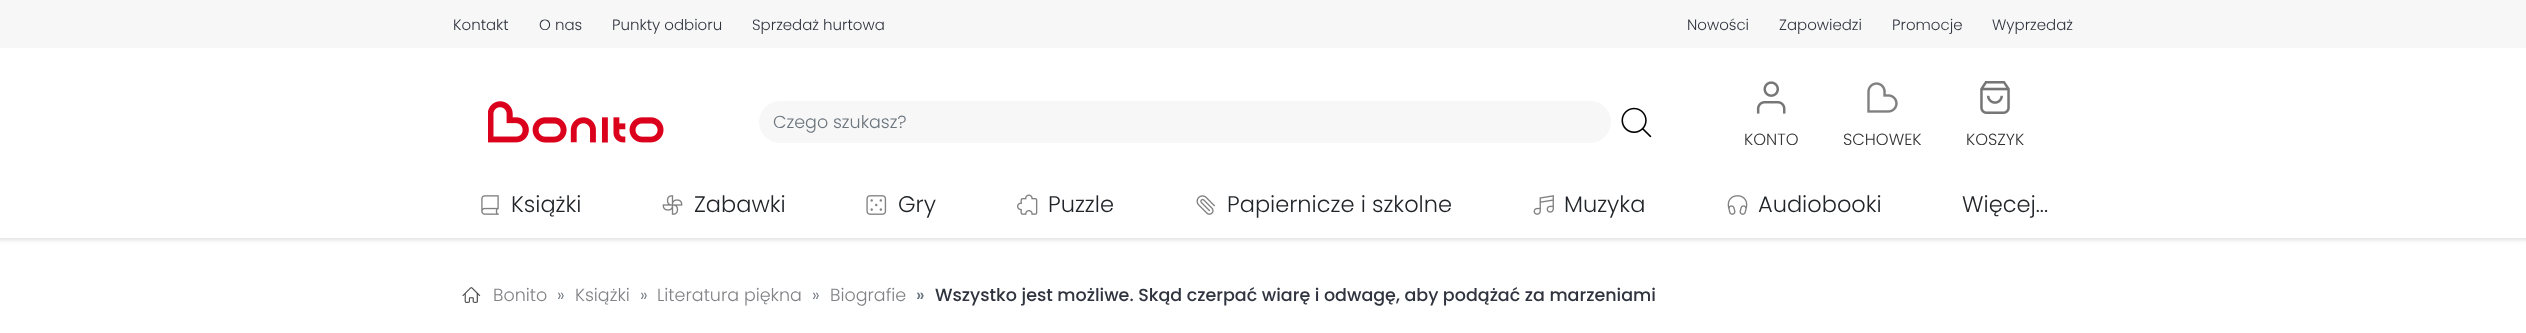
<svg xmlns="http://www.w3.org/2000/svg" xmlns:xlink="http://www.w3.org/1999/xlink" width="2526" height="333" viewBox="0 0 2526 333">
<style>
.cls-1{font:300 15px Poppins;fill:#30343f}
.cls-2{font:300 17.5px Poppins;fill:#6c757d}
.cls-3{font:300 16.25px Poppins;fill:#333333}
.cls-4{font:300 22.5px Poppins;fill:#212529}
.cls-5{font:300 17.5px Poppins;fill:#818285}
.cls-6{font:500 17.5px Poppins;fill:#6c757d}
.cls-7{font:500 17.5px Poppins;fill:#30343f}
</style>
<rect width="100%" height="100%" fill="#ffffff"/>
<rect fill="#e0e0e0" filter="blur(2px)" x="-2" y="-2" width="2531" height="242"/>
<rect fill="#ffffff" x="0" y="48" width="2526" height="190"/>
<rect fill="#f7f7f7" x="0" y="0" width="2526" height="48"/>
<image xlink:href="image0.png" x="488" y="101" width="176" height="42"/>
<rect fill="#f7f7f7" x="759" y="101" width="852" height="42" rx="21"/>
<image xlink:href="image1.png" x="1621" y="107" width="31" height="31"/>
<image xlink:href="image2.png" x="1756" y="81" width="30" height="33"/>
<image xlink:href="image3.png" x="1867" y="82" width="31" height="31"/>
<image xlink:href="image4.png" x="1980" y="81" width="30" height="33"/>
<image xlink:href="image5.png" x="481" y="195" width="18" height="20"/>
<image xlink:href="image6.png" x="662" y="195" width="21" height="20"/>
<image xlink:href="image7.png" x="866" y="195" width="21" height="20"/>
<image xlink:href="image8.png" x="1017" y="194" width="21" height="21"/>
<image xlink:href="image9.png" x="1196" y="195" width="20" height="20"/>
<image xlink:href="image10.png" x="1533" y="195" width="21" height="20"/>
<image xlink:href="image11.png" x="1727" y="195" width="21" height="20"/>
<image xlink:href="image12.png" x="462" y="287" width="19" height="16"/>
<text class="cls-1" x="453" y="30">Kontakt</text>
<text class="cls-1" x="539" y="30">O nas</text>
<text class="cls-1" x="612" y="30">Punkty odbioru</text>
<text class="cls-1" x="752" y="30">Sprzedaż hurtowa</text>
<text class="cls-1" x="1687" y="30">Nowości</text>
<text class="cls-1" x="1779" y="30">Zapowiedzi</text>
<text class="cls-1" x="1892" y="30">Promocje</text>
<text class="cls-1" x="1992" y="30">Wyprzedaż</text>
<text class="cls-2" x="773" y="128">Czego szukasz?</text>
<text class="cls-3" x="1744" y="145">KONTO</text>
<text class="cls-3" x="1843" y="145">SCHOWEK</text>
<text class="cls-3" x="1966" y="145">KOSZYK</text>
<text class="cls-4" x="511" y="212">Książki</text>
<text class="cls-4" x="694" y="212">Zabawki</text>
<text class="cls-4" x="898" y="212">Gry</text>
<text class="cls-4" x="1048" y="212">Puzzle</text>
<text class="cls-4" x="1227" y="212">Papiernicze i szkolne</text>
<text class="cls-4" x="1564" y="212">Muzyka</text>
<text class="cls-4" x="1758" y="212">Audiobooki</text>
<text class="cls-4" x="1962" y="212">Więcej...</text>
<text class="cls-5" x="493" y="301">Bonito</text>
<text class="cls-2" x="557" y="301">»</text>
<text class="cls-5" x="575" y="301">Książki</text>
<text class="cls-2" x="640" y="301">»</text>
<text class="cls-5" x="657" y="301">Literatura piękna</text>
<text class="cls-2" x="812" y="301">»</text>
<text class="cls-5" x="830" y="301">Biografie</text>
<text class="cls-6" x="916" y="301">»</text>
<text class="cls-7" x="935" y="301">Wszystko jest możliwe. Skąd czerpać wiarę i odwagę, aby podążać za marzeniami</text>
</svg>
